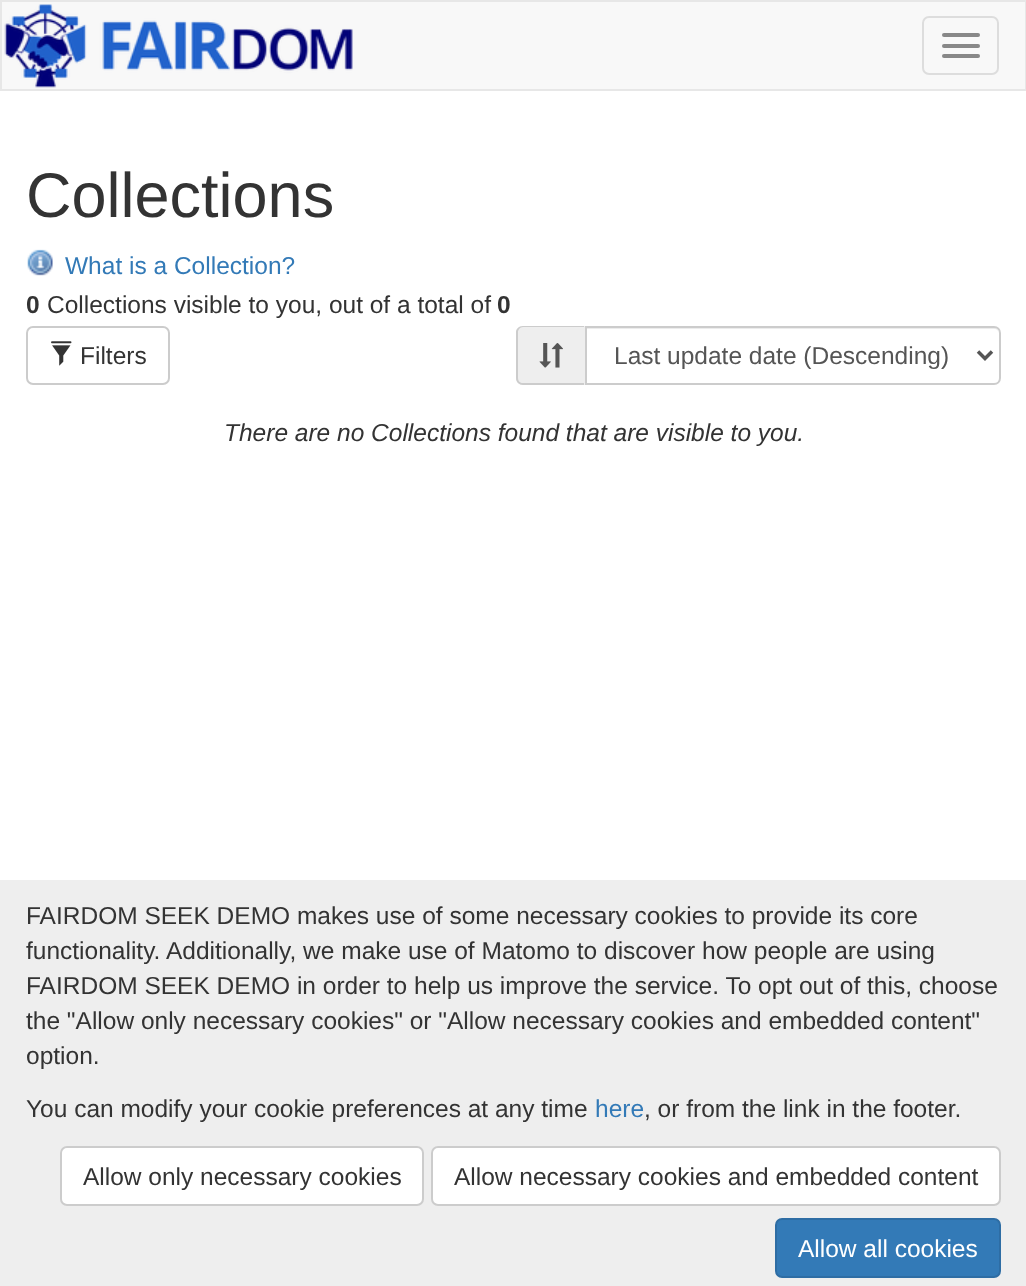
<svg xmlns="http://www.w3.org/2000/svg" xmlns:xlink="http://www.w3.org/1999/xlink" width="1026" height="1286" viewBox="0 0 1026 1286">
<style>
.cls-1{font:63px Liberation Sans;fill:#333333}
.cls-2{font:24.5px Liberation Sans;fill:#337ab7}
.cls-3{font:bold 24.5px Liberation Sans;fill:#333333}
.cls-4{font:24.5px Liberation Sans;fill:#333333}
.cls-5{font:24.5px Liberation Sans;fill:#555555}
.cls-6{font:italic 24.5px Liberation Sans;fill:#333333}
.cls-7{font:24.5px Liberation Sans;fill:#ffffff}
</style>
<rect width="100%" height="100%" fill="#ffffff"/>
<rect fill="#f8f8f8" stroke="#e7e7e7" stroke-width="2" x="1" y="1" width="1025" height="89"/>
<image xlink:href="image0.png" x="4" y="4" width="349" height="84"/>
<rect fill="none" stroke="#dddddd" stroke-width="2" x="923" y="17" width="75" height="57" rx="6"/>
<rect fill="#888888" x="942" y="33" width="38" height="4" rx="2"/>
<rect fill="#888888" x="942" y="44" width="38" height="4" rx="2"/>
<rect fill="#888888" x="942" y="54" width="38" height="4" rx="2"/>
<image xlink:href="image1.png" x="27" y="249" width="26" height="27"/>
<rect fill="none" stroke="#cccccc" stroke-width="2" x="27" y="327" width="142" height="57" rx="6"/>
<image xlink:href="image2.png" x="51" y="341" width="21" height="25"/>
<path fill="#eeeeee" d="M523 326H585V385H523C519 385 516 382 516 378V333C516 329 519 326 523 326Z"/>
<path fill="#cccccc" fill-rule="evenodd" d="M523 326H584V385H523C519 385 516 382 516 378V332C516 329 519 326 523 326ZM523 327H584V383H523C520 383 518 381 518 378V332C518 330 520 327 523 327Z"/>
<image xlink:href="image3.png" x="539" y="343" width="24" height="25"/>
<path fill="#ececec" d="M586 329H994C997 329 999 331 999 334C999 331 998 327 994 327H586Z"/>
<path fill="none" stroke="#cccccc" stroke-width="2" d="M586 327H994C997.5 327 1000 329.5 1000 333V378C1000 381.5 997.5 384 994 384H586Z"/>
<path fill="none" stroke="#555555" stroke-width="3.5" d="M978 351.5L985 358.5L992 351.5"/>
<rect fill="#eeeeee" x="0" y="880" width="1026" height="406"/>
<rect fill="#ffffff" stroke="#cccccc" stroke-width="2" x="61" y="1147" width="362" height="58" rx="6"/>
<rect fill="#ffffff" stroke="#cccccc" stroke-width="2" x="432" y="1147" width="568" height="58" rx="6"/>
<rect fill="#337ab7" stroke="#2e6da4" stroke-width="2" x="776" y="1219" width="224" height="58" rx="6"/>
<text class="cls-1" x="26" y="217">Collections</text>
<text class="cls-2" x="65" y="274">What is a Collection?</text>
<text class="cls-3" x="26" y="313">0</text>
<text class="cls-4" x="47" y="313">Collections visible to you, out of a total of</text>
<text class="cls-3" x="497" y="313">0</text>
<text class="cls-4" x="80" y="364">Filters</text>
<text class="cls-5" x="614" y="364">Last update date (Descending)</text>
<text class="cls-6" x="224" y="441">There are no Collections found that are visible to you.</text>
<text class="cls-4"><tspan x="26" y="924">FAIRDOM SEEK DEMO makes use of some necessary cookies to provide its core</tspan><tspan x="26" y="959">functionality.</tspan></text>
<text class="cls-4" x="166" y="959">Additionally, we make use of Matomo to discover how people are using</text>
<text class="cls-4"><tspan x="26" y="994">FAIRDOM SEEK DEMO in order to help us improve the service. To opt out of this, choose</tspan><tspan x="26" y="1029">the "Allow only necessary cookies" or "Allow necessary cookies and embedded content"</tspan><tspan x="26" y="1064">option.</tspan></text>
<text class="cls-4" x="26" y="1117">You can modify your cookie preferences at any time</text>
<text class="cls-2" x="595" y="1117">here</text>
<text class="cls-4" x="644" y="1117">, or from the link in the footer.</text>
<text class="cls-4" x="83" y="1185">Allow only necessary cookies</text>
<text class="cls-4" x="454" y="1185">Allow necessary cookies and embedded content</text>
<text class="cls-7" x="798" y="1257">Allow all cookies</text>
</svg>
